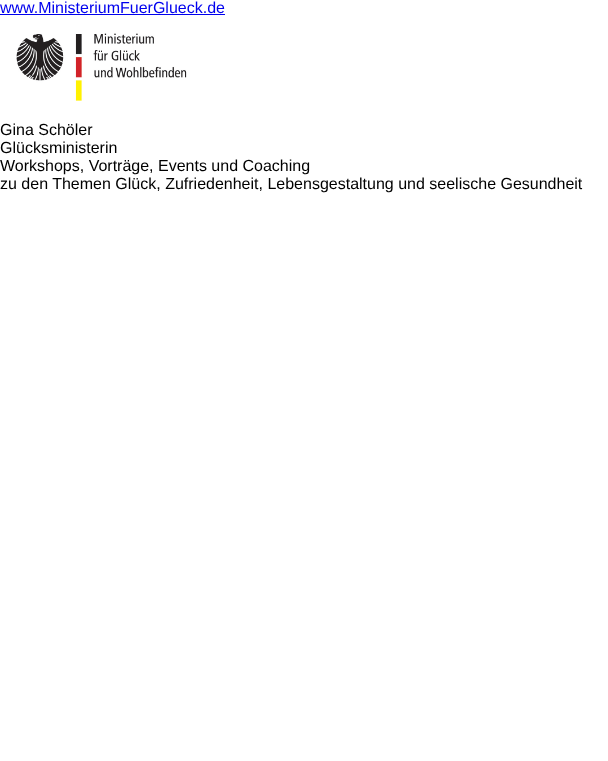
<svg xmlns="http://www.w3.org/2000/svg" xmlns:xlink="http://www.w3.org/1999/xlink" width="608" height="761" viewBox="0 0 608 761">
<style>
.cls-1{font:16px Liberation Sans;fill:#0000ee}
.cls-2{font:16px Liberation Sans;fill:#000000}
</style>
<rect width="100%" height="100%" fill="#ffffff"/>
<rect fill="#0000ee" x="0" y="14" width="225" height="1"/>
<image xlink:href="image0.png" x="16" y="33" width="171" height="68"/>
<text class="cls-1" x="0" y="13">www.MinisteriumFuerGlueck.de</text>
<text class="cls-2"><tspan x="0" y="135">Gina Schöler</tspan><tspan x="0" y="153">Glücksministerin</tspan><tspan x="0" y="171">Workshops, Vorträge, Events und Coaching</tspan><tspan x="0" y="189">zu den Themen Glück, Zufriedenheit, Lebensgestaltung und seelische Gesundheit</tspan></text>
</svg>
